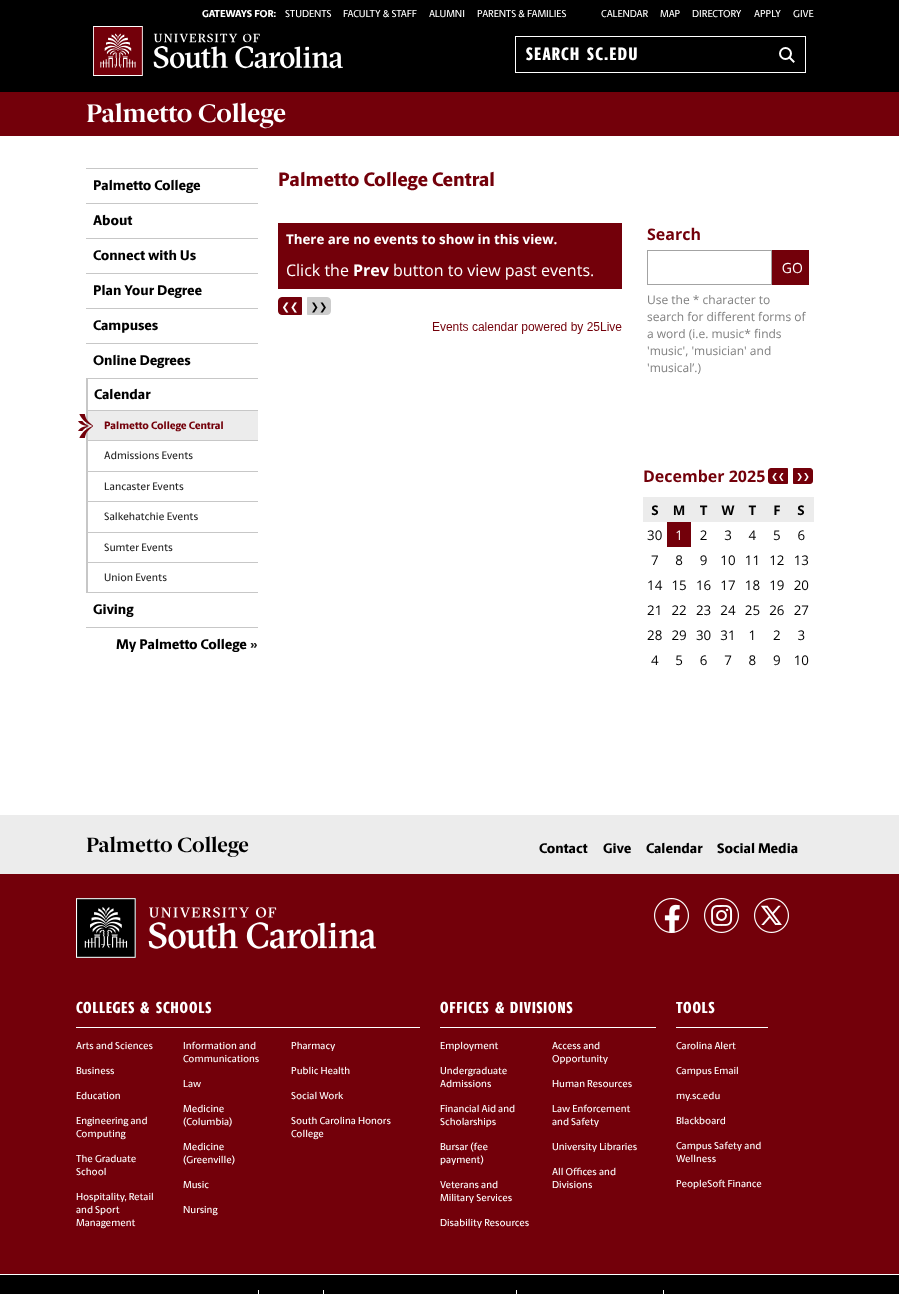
<svg xmlns="http://www.w3.org/2000/svg" xmlns:xlink="http://www.w3.org/1999/xlink" width="899" height="1294" viewBox="0 0 899 1294">
<style>
.cls-1{font:800 10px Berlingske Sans;fill:#ffffff}
.cls-2{font:500 10px Berlingske Sans;fill:#ffffff}
.cls-3{font:800 18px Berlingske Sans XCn;letter-spacing:1.5px;fill:#ffffff}
.cls-4{font:bold 25.5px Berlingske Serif;fill:#ffffff}
.cls-5{font:800 14px Berlingske Sans;fill:#000000}
.cls-6{font:800 10.75px Berlingske Sans;fill:#73000a}
.cls-7{font:500 10.75px Berlingske Sans;fill:#222222}
.cls-8{font:800 14px Berlingske Sans;fill:#222222}
.cls-9{font:800 19.5px Berlingske Sans;fill:#73000a}
.cls-10{font:bold 20.75px Berlingske Serif;fill:#000000}
.cls-11{font:800 16px Berlingske Sans XCn;letter-spacing:1px;fill:#ffffff}
</style>
<rect width="100%" height="100%" fill="#ffffff"/>
<rect fill="#000000" x="0" y="0" width="76" height="92"/>
<rect fill="#000000" x="76" y="0" width="823" height="92"/>
<rect fill="none" stroke="#ffffff" x="515.5" y="36.5" width="290" height="36"/>
<path fill="none" stroke="#ffffff" stroke-width="2" stroke-linecap="square" d="M793.5 61.5L789.5 57.5"/>
<circle fill="none" stroke="#ffffff" stroke-width="2" cx="785.5" cy="53.5" r="5.5"/>
<image xlink:href="image0.png" x="93" y="26" width="250" height="50"/>
<rect fill="#73000a" x="0" y="92" width="899" height="44"/>
<rect fill="#c7c7c7" x="86" y="168" width="172" height="1"/>
<rect fill="#c7c7c7" x="86" y="203" width="172" height="1"/>
<rect fill="#c7c7c7" x="86" y="238" width="172" height="1"/>
<rect fill="#c7c7c7" x="86" y="273" width="172" height="1"/>
<rect fill="#c7c7c7" x="86" y="308" width="172" height="1"/>
<rect fill="#c7c7c7" x="86" y="343" width="172" height="1"/>
<rect fill="#c7c7c7" x="86" y="378" width="172" height="1"/>
<rect fill="#c7c7c7" x="86" y="592" width="172" height="1"/>
<rect fill="#c7c7c7" x="86" y="379" width="2" height="214"/>
<rect fill="#c7c7c7" x="88" y="410" width="170" height="1"/>
<rect fill="#c7c7c7" x="88" y="440" width="170" height="1"/>
<rect fill="#ececec" x="88" y="411" width="170" height="29"/>
<image xlink:href="image1.png" x="78" y="414" width="15" height="24"/>
<rect fill="#c7c7c7" x="88" y="471" width="170" height="1"/>
<rect fill="#c7c7c7" x="88" y="501" width="170" height="1"/>
<rect fill="#c7c7c7" x="88" y="532" width="170" height="1"/>
<rect fill="#c7c7c7" x="88" y="562" width="170" height="1"/>
<rect fill="#c7c7c7" x="86" y="627" width="172" height="1"/>
<image xlink:href="image2.png" x="278" y="223" width="344" height="111"/>
<image xlink:href="image3.png" x="647" y="227" width="162" height="147"/>
<image xlink:href="image4.png" x="643" y="468" width="171" height="198"/>
<rect fill="#ececec" x="0" y="815" width="899" height="59"/>
<rect fill="#73000a" x="0" y="874" width="899" height="400"/>
<image xlink:href="image5.png" x="76" y="898" width="300" height="60"/>
<image xlink:href="image6.png" x="654" y="898" width="35" height="35"/>
<image xlink:href="image7.png" x="704" y="898" width="35" height="35"/>
<image xlink:href="image8.png" x="754" y="898" width="35" height="35"/>
<rect fill="#ffffff" x="76" y="1027" width="344" height="1"/>
<rect fill="#ffffff" x="440" y="1027" width="216" height="1"/>
<rect fill="#ffffff" x="676" y="1027" width="92" height="1"/>
<rect fill="#000000" x="0" y="1275" width="899" height="19"/>
<rect fill="#ffffff" x="258" y="1290" width="1" height="4"/>
<rect fill="#ffffff" x="323" y="1290" width="1" height="4"/>
<rect fill="#ffffff" x="516" y="1290" width="1" height="4"/>
<rect fill="#ffffff" x="663" y="1290" width="1" height="4"/>
<text class="cls-1" x="202" y="17">GATEWAYS FOR:</text>
<text class="cls-2" x="285" y="17">STUDENTS</text>
<text class="cls-2" x="343" y="17">FACULTY &amp; STAFF</text>
<text class="cls-2" x="429" y="17">ALUMNI</text>
<text class="cls-2" x="477" y="17">PARENTS &amp; FAMILIES</text>
<text class="cls-2" x="601" y="17">CALENDAR</text>
<text class="cls-2" x="660" y="17">MAP</text>
<text class="cls-2" x="692" y="17">DIRECTORY</text>
<text class="cls-2" x="754" y="17">APPLY</text>
<text class="cls-2" x="793" y="17">GIVE</text>
<text class="cls-3" x="526" y="60">SEARCH</text>
<text class="cls-3" x="587" y="60">SC.EDU</text>
<text class="cls-4" x="86" y="122">Palmetto College</text>
<text class="cls-5" x="93" y="190">Palmetto College</text>
<text class="cls-5" x="93" y="225">About</text>
<text class="cls-5" x="93" y="260">Connect with Us</text>
<text class="cls-5" x="93" y="295">Plan Your Degree</text>
<text class="cls-5" x="93" y="330">Campuses</text>
<text class="cls-5" x="93" y="365">Online Degrees</text>
<text class="cls-5" x="94" y="399">Calendar</text>
<text class="cls-6" x="104" y="429">Palmetto College Central</text>
<text class="cls-7" x="104" y="459">Admissions Events</text>
<text class="cls-7" x="104" y="490">Lancaster Events</text>
<text class="cls-7" x="104" y="520">Salkehatchie Events</text>
<text class="cls-7" x="104" y="551">Sumter Events</text>
<text class="cls-7" x="104" y="581">Union Events</text>
<text class="cls-5" x="93" y="614">Giving</text>
<text class="cls-5" x="116" y="649">My Palmetto College</text>
<text class="cls-8" x="250" y="649">»</text>
<text class="cls-9" x="278" y="186">Palmetto College Central</text>
<text class="cls-10" x="86" y="852">Palmetto College</text>
<text class="cls-5" x="539" y="853">Contact</text>
<text class="cls-5" x="603" y="853">Give</text>
<text class="cls-5" x="646" y="853">Calendar</text>
<text class="cls-5" x="717" y="853">Social Media</text>
<text class="cls-11" x="76" y="1013">COLLEGES</text>
<text class="cls-11" x="140" y="1013">&amp;</text>
<text class="cls-11" x="156" y="1013">SCHOOLS</text>
<text class="cls-2" x="76" y="1049">Arts and Sciences</text>
<text class="cls-2" x="76" y="1074">Business</text>
<text class="cls-2" x="76" y="1099">Education</text>
<text class="cls-2"><tspan x="76" y="1124">Engineering and</tspan><tspan x="76" y="1137">Computing</tspan></text>
<text class="cls-2"><tspan x="76" y="1162">The Graduate</tspan><tspan x="76" y="1175">School</tspan></text>
<text class="cls-2"><tspan x="76" y="1200">Hospitality, Retail</tspan><tspan x="76" y="1213">and Sport</tspan><tspan x="76" y="1226">Management</tspan></text>
<text class="cls-2"><tspan x="183" y="1049">Information and</tspan><tspan x="183" y="1062">Communications</tspan></text>
<text class="cls-2" x="183" y="1087">Law</text>
<text class="cls-2"><tspan x="183" y="1112">Medicine</tspan><tspan x="183" y="1125">(Columbia)</tspan></text>
<text class="cls-2"><tspan x="183" y="1150">Medicine</tspan><tspan x="183" y="1163">(Greenville)</tspan></text>
<text class="cls-2" x="183" y="1188">Music</text>
<text class="cls-2" x="183" y="1213">Nursing</text>
<text class="cls-2" x="291" y="1049">Pharmacy</text>
<text class="cls-2" x="291" y="1074">Public Health</text>
<text class="cls-2" x="291" y="1099">Social Work</text>
<text class="cls-2"><tspan x="291" y="1124">South Carolina Honors</tspan><tspan x="291" y="1137">College</tspan></text>
<text class="cls-11" x="440" y="1013">OFFICES</text>
<text class="cls-11" x="495" y="1013">&amp;</text>
<text class="cls-11" x="510" y="1013">DIVISIONS</text>
<text class="cls-2" x="440" y="1049">Employment</text>
<text class="cls-2"><tspan x="440" y="1074">Undergraduate</tspan><tspan x="440" y="1087">Admissions</tspan></text>
<text class="cls-2"><tspan x="440" y="1112">Financial Aid and</tspan><tspan x="440" y="1125">Scholarships</tspan></text>
<text class="cls-2"><tspan x="440" y="1150">Bursar (fee</tspan><tspan x="440" y="1163">payment)</tspan></text>
<text class="cls-2"><tspan x="440" y="1188">Veterans and</tspan><tspan x="440" y="1201">Military Services</tspan></text>
<text class="cls-2" x="440" y="1226">Disability Resources</text>
<text class="cls-2"><tspan x="552" y="1049">Access and</tspan><tspan x="552" y="1062">Opportunity</tspan></text>
<text class="cls-2" x="552" y="1087">Human Resources</text>
<text class="cls-2"><tspan x="552" y="1112">Law Enforcement</tspan><tspan x="552" y="1125">and Safety</tspan></text>
<text class="cls-2" x="552" y="1150">University Libraries</text>
<text class="cls-2"><tspan x="552" y="1175">All Offices and</tspan><tspan x="552" y="1188">Divisions</tspan></text>
<text class="cls-11" x="676" y="1013">TOOLS</text>
<text class="cls-2" x="676" y="1049">Carolina Alert</text>
<text class="cls-2" x="676" y="1074">Campus Email</text>
<text class="cls-2" x="676" y="1099">my.sc.edu</text>
<text class="cls-2" x="676" y="1124">Blackboard</text>
<text class="cls-2"><tspan x="676" y="1149">Campus Safety and</tspan><tspan x="676" y="1162">Wellness</tspan></text>
<text class="cls-2" x="676" y="1187">PeopleSoft Finance</text>
</svg>
